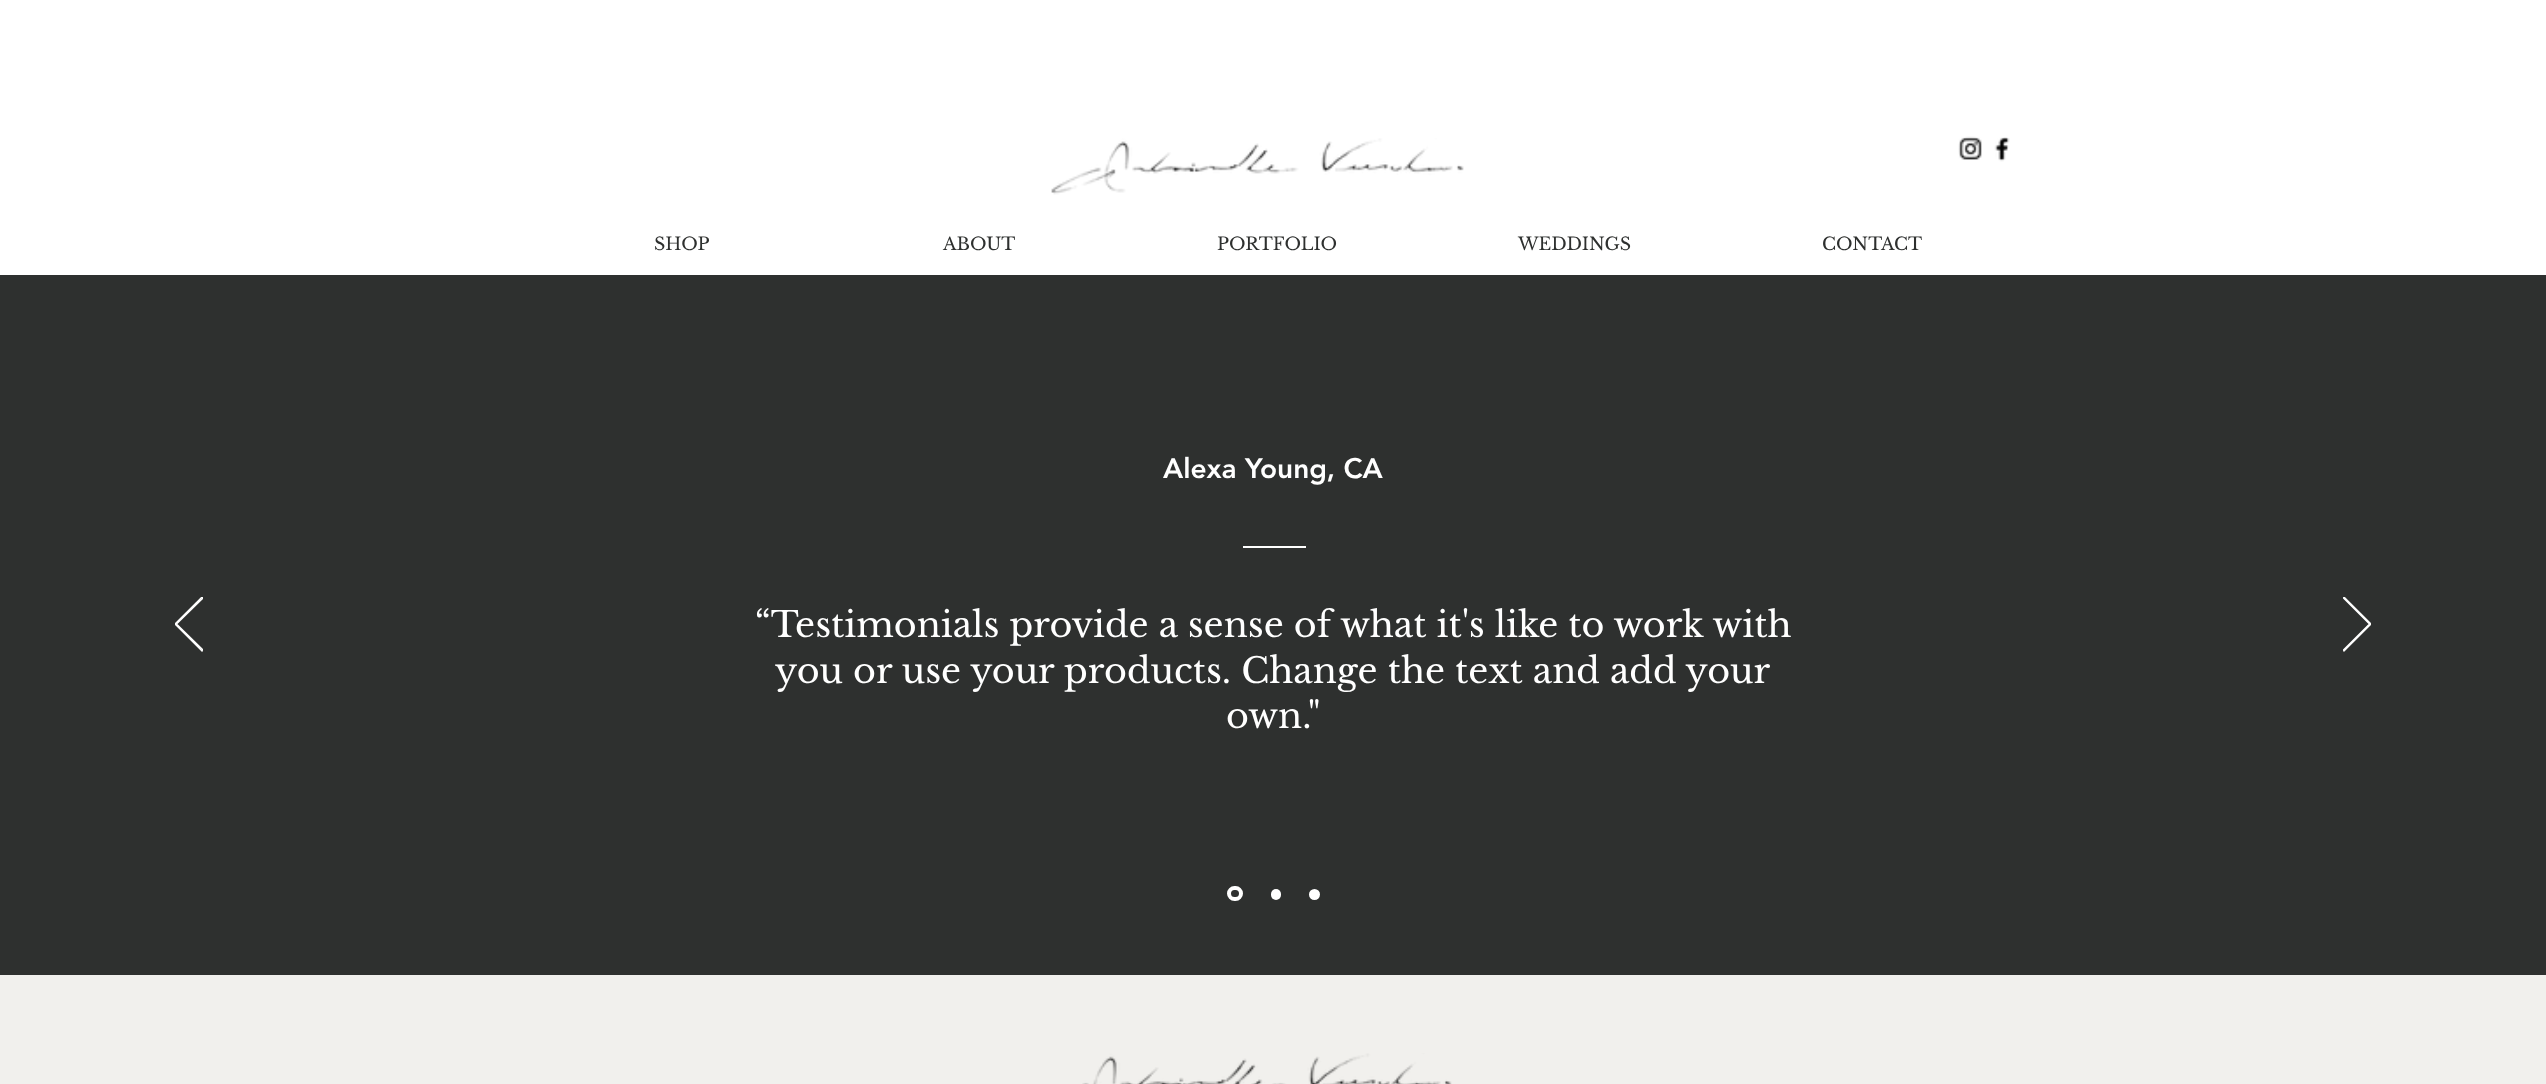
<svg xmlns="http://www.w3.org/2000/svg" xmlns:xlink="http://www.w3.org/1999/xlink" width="2546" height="1084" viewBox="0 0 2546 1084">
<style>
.cls-1{font:17.5px Libre Baskerville;fill:#2e302f}
.cls-2{font:900 28px 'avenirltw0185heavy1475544';fill:#ffffff}
.cls-3{font:35px Libre Baskerville;fill:#ffffff}
</style>
<defs>
<clipPath id="clip1"><rect x="175" y="597" width="28" height="56"/></clipPath>
<clipPath id="clip2"><rect x="2343" y="597" width="28" height="56"/></clipPath>
</defs>
<rect width="100%" height="100%" fill="#ffffff"/>
<image xlink:href="image0.png" x="1051" y="138" width="413" height="57"/>
<image xlink:href="image1.png" x="1958" y="136" width="24" height="24"/>
<image xlink:href="image2.png" x="1994" y="137" width="16" height="25"/>
<rect fill="#2e302f" x="0" y="275" width="2546" height="700"/>
<g clip-path="url(#clip1)">
<path fill="none" stroke="#ffffff" stroke-width="1.3" d="M202 651L175 624L202 597L203 598L176.5 624L203 650Z"/>
</g>
<rect fill="#ffffff" x="1243" y="546" width="63" height="2"/>
<g clip-path="url(#clip2)">
<path fill="none" stroke="#ffffff" stroke-width="1.3" d="M2344 651L2371 624L2344 597L2343.5 598L2369.5 624L2343.5 650Z"/>
</g>
<rect fill="none" stroke="#ffffff" stroke-width="4" x="1229" y="888" width="12" height="11" rx="5.5"/>
<rect fill="#ffffff" x="1271" y="889" width="10" height="11" rx="5"/>
<circle fill="#ffffff" cx="1314.5" cy="894.5" r="5.5"/>
<rect fill="#f1f0ed" x="0" y="975" width="2546" height="109"/>
<image xlink:href="image3.png" x="1082" y="1053" width="370" height="31"/>
<text class="cls-1" x="654" y="250">SHOP</text>
<text class="cls-1" x="943" y="250">ABOUT</text>
<text class="cls-1" x="1217" y="250">PORTFOLIO</text>
<text class="cls-1" x="1518" y="250">WEDDINGS</text>
<text class="cls-1" x="1822" y="250">CONTACT</text>
<text class="cls-2" x="1163" y="478">Alexa Young, CA</text>
<text class="cls-3" x="755" y="637">“Testimonials provide a sense of what it's like to work with</text>
<text class="cls-3" x="775" y="683">you or use your products. Change the text and add your</text>
<text class="cls-3" x="1226" y="728">own."</text>
</svg>
